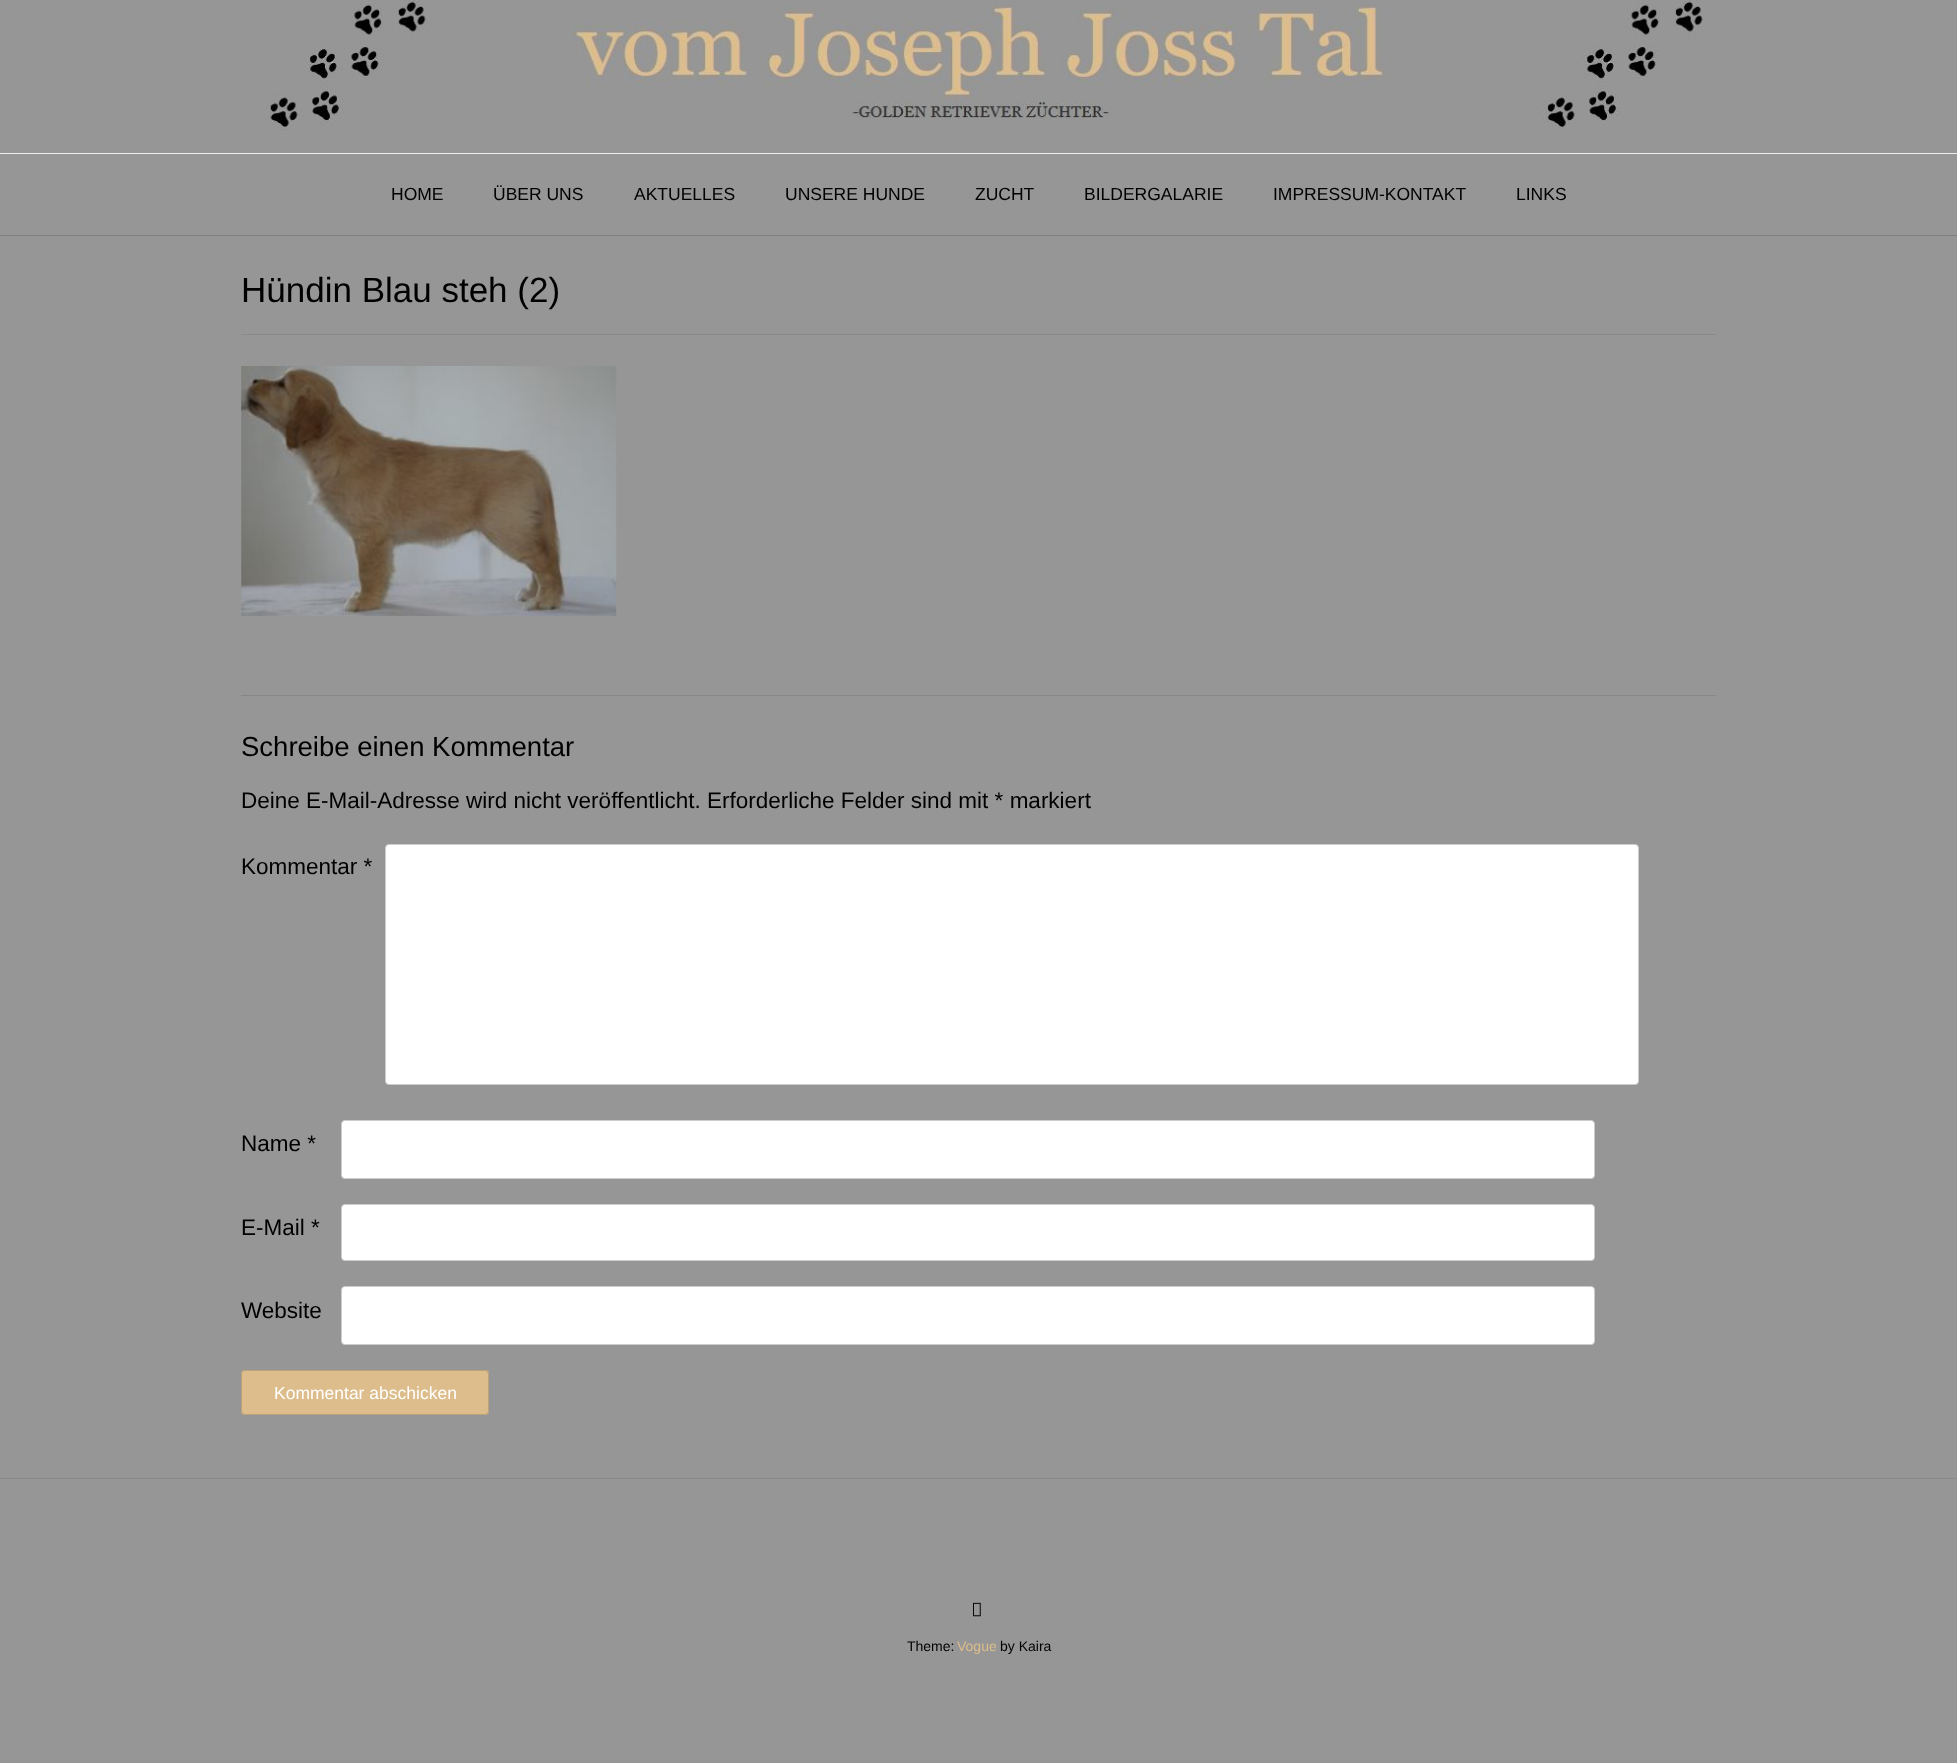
<svg xmlns="http://www.w3.org/2000/svg" xmlns:xlink="http://www.w3.org/1999/xlink" width="1957" height="1763" viewBox="0 0 1957 1763">
<style>
.cls-1{font:17.5px Liberation Sans;fill:#000000}
.cls-2{font:35px Liberation Sans;fill:#000000}
.cls-3{font:27.5px Liberation Sans;fill:#000000}
.cls-4{font:22.5px Liberation Sans;fill:#000000}
.cls-5{font:17.5px Liberation Sans;fill:#ffffff}
.cls-6{font:14px Liberation Sans;fill:#000000}
.cls-7{font:14px Liberation Sans;fill:#ddbd8b}
</style>
<rect width="100%" height="100%" fill="#969696"/>
<rect fill="#818181" x="0" y="235" width="1957" height="1"/>
<image xlink:href="image0.png" x="265" y="0" width="1438" height="133"/>
<rect fill="#efefef" x="0" y="153" width="1957" height="1"/>
<rect fill="#8a8a8a" x="241" y="334" width="1475" height="1"/>
<rect fill="#878787" x="241" y="695" width="1475" height="1"/>
<image xlink:href="image1.png" x="241" y="366" width="376" height="250"/>
<rect fill="#ffffff" stroke="#cccccc" x="385.5" y="844.5" width="1253" height="240" rx="3.5"/>
<rect fill="#ffffff" stroke="#cccccc" x="341.5" y="1120.5" width="1253" height="58" rx="3.5"/>
<rect fill="#ffffff" stroke="#cccccc" x="341.5" y="1204.5" width="1253" height="56" rx="3.5"/>
<rect fill="#ffffff" stroke="#cccccc" x="341.5" y="1286.5" width="1253" height="58" rx="3.5"/>
<rect fill="#ddbd8b" x="241" y="1370" width="248" height="45" rx="4"/>
<rect fill="none" stroke="#000000" stroke-opacity="0.14" x="241.5" y="1370.5" width="247" height="44" rx="3.5"/>
<rect fill="#8a8a8a" x="0" y="1478" width="1957" height="1"/>
<image xlink:href="image2.png" x="973" y="1602" width="8" height="15"/>
<text class="cls-1" x="391" y="200">HOME</text>
<text class="cls-1" x="493" y="200">ÜBER UNS</text>
<text class="cls-1" x="634" y="200">AKTUELLES</text>
<text class="cls-1" x="785" y="200">UNSERE HUNDE</text>
<text class="cls-1" x="975" y="200">ZUCHT</text>
<text class="cls-1" x="1084" y="200">BILDERGALARIE</text>
<text class="cls-1" x="1273" y="200">IMPRESSUM-KONTAKT</text>
<text class="cls-1" x="1516" y="200">LINKS</text>
<text class="cls-2" x="241" y="302">Hündin Blau steh (2)</text>
<text class="cls-3" x="241" y="756">Schreibe einen Kommentar</text>
<text class="cls-4" x="241" y="808">Deine E-Mail-Adresse wird nicht veröffentlicht. Erforderliche Felder sind mit * markiert</text>
<text class="cls-4" x="241" y="874">Kommentar *</text>
<text class="cls-4" x="241" y="1151">Name *</text>
<text class="cls-4" x="241" y="1235">E-Mail *</text>
<text class="cls-4" x="241" y="1318">Website</text>
<text class="cls-5" x="274" y="1399">Kommentar abschicken</text>
<text class="cls-6" x="907" y="1651">Theme:</text>
<text class="cls-7" x="957" y="1651">Vogue</text>
<text class="cls-6" x="1000" y="1651">by Kaira</text>
</svg>
